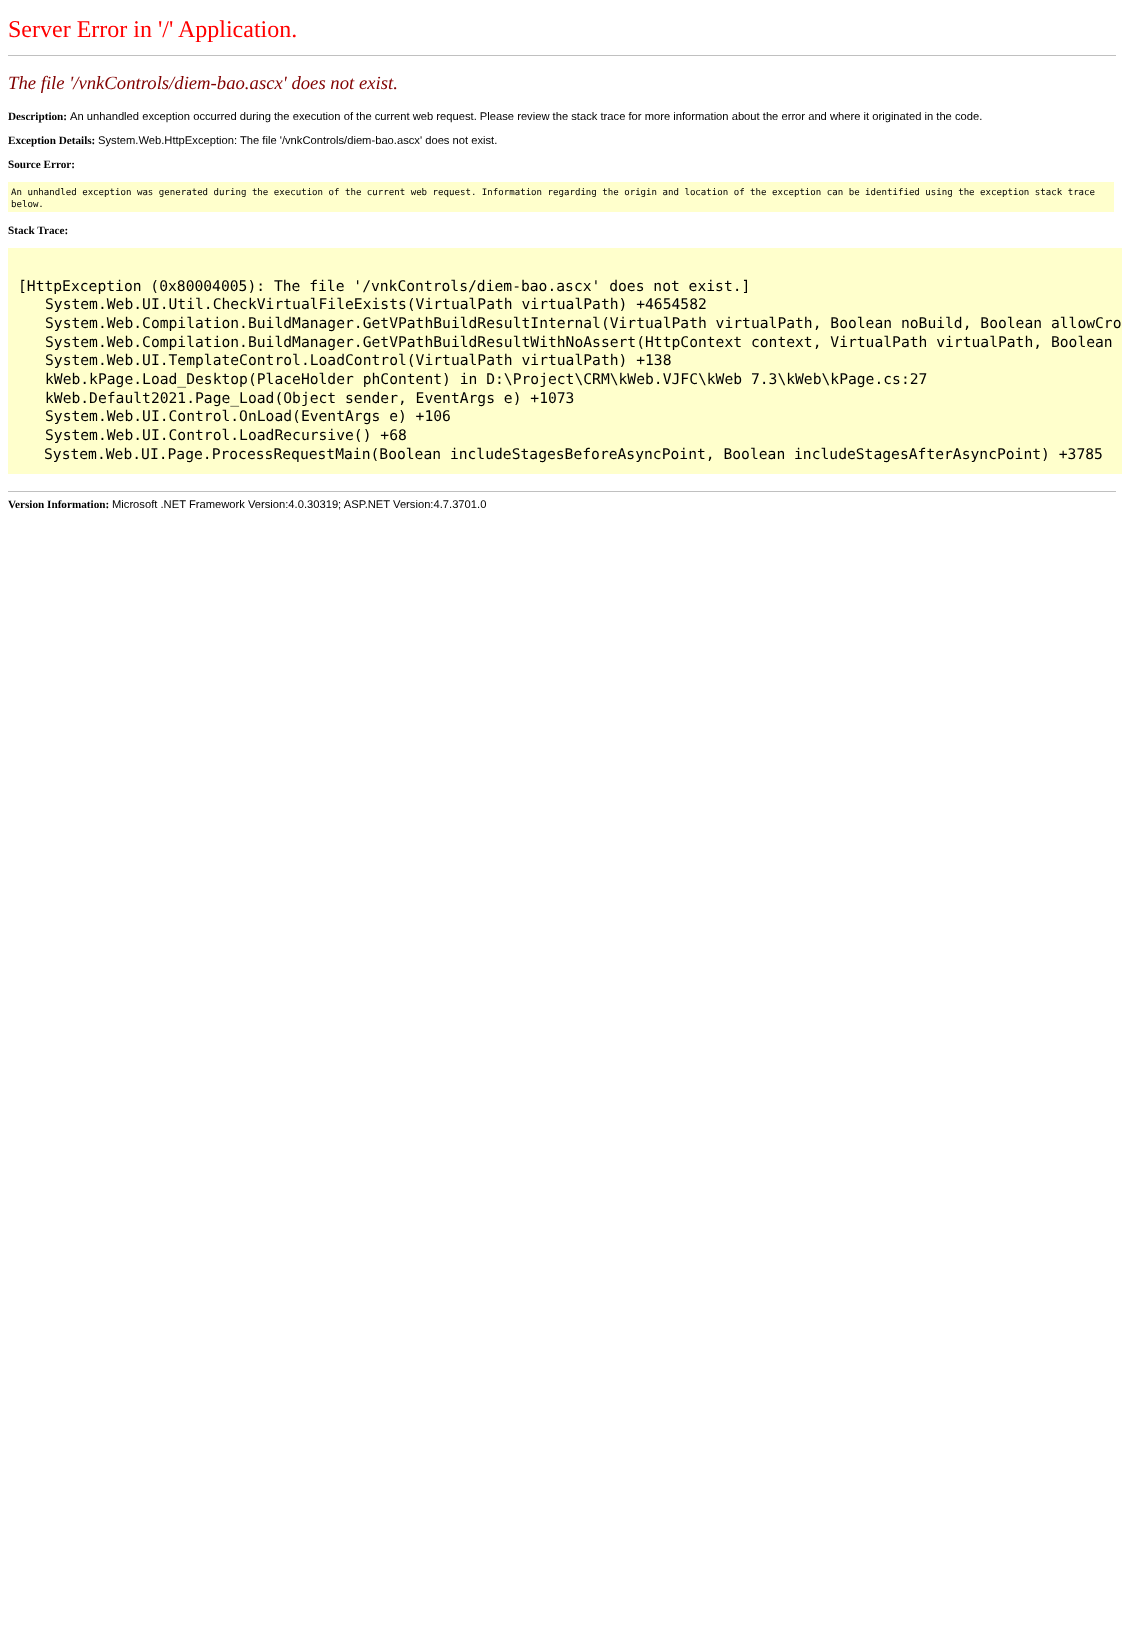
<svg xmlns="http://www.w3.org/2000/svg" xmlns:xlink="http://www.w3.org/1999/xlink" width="1122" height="1629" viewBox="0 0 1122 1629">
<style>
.cls-1{font:24px Liberation Serif;fill:#ff0000}
.cls-2{font:italic 18.7px Liberation Serif;fill:#800000}
.cls-3{font:bold 11.2px Liberation Serif;fill:#000000}
.cls-4{font:11.2px Liberation Sans;fill:#000000}
.cls-5{font:9.1px DejaVu Sans Mono;fill:#000000}
.cls-6{font:14.67px DejaVu Sans Mono;fill:#000000}
</style>
<rect width="100%" height="100%" fill="#ffffff"/>
<rect fill="#c0c0c0" x="8" y="55" width="1108" height="1"/>
<rect fill="#ffffcc" x="8" y="182" width="1106" height="30"/>
<rect fill="#ffffcc" x="8" y="248" width="1114" height="226"/>
<rect fill="#c0c0c0" x="8" y="491" width="1108" height="1"/>
<text class="cls-1" x="8" y="37">Server Error in '/' Application.</text>
<text class="cls-2" x="8" y="89">The file '/vnkControls/diem-bao.ascx' does not exist.</text>
<text class="cls-3" x="8" y="120">Description:</text>
<text class="cls-4" x="70" y="120">An unhandled exception occurred during the execution of the current web request. Please review the stack trace for more information about the error and where it originated in the code.</text>
<text class="cls-3" x="8" y="144">Exception Details:</text>
<text class="cls-4" x="98" y="144">System.Web.HttpException: The file '/vnkControls/diem-bao.ascx' does not exist.</text>
<text class="cls-3" x="8" y="168">Source Error:</text>
<text class="cls-5"><tspan x="11" y="195">An unhandled exception was generated during the execution of the current web request. Information regarding the origin and location of the exception can be identified using the exception stack trace</tspan><tspan x="11" y="207">below.</tspan></text>
<text class="cls-3" x="8" y="234">Stack Trace:</text>
<text class="cls-6" x="18" y="291">[HttpException (0x80004005): The file '/vnkControls/diem-bao.ascx' does not exist.]</text>
<text class="cls-6"><tspan x="45" y="309">System.Web.UI.Util.CheckVirtualFileExists(VirtualPath virtualPath) +4654582</tspan><tspan x="45" y="328">System.Web.Compilation.BuildManager.GetVPathBuildResultInternal(VirtualPath virtualPath, Boolean noBuild, Boolean allowCro</tspan><tspan x="45" y="347">System.Web.Compilation.BuildManager.GetVPathBuildResultWithNoAssert(HttpContext context, VirtualPath virtualPath, Boolean</tspan><tspan x="45" y="365">System.Web.UI.TemplateControl.LoadControl(VirtualPath virtualPath) +138</tspan><tspan x="45" y="384">kWeb.kPage.Load_Desktop(PlaceHolder phContent) in D:\Project\CRM\kWeb.VJFC\kWeb 7.3\kWeb\kPage.cs:27</tspan><tspan x="45" y="403">kWeb.Default2021.Page_Load(Object sender, EventArgs e) +1073</tspan><tspan x="45" y="421">System.Web.UI.Control.OnLoad(EventArgs e) +106</tspan><tspan x="45" y="440">System.Web.UI.Control.LoadRecursive() +68</tspan></text>
<text class="cls-6" x="44" y="459">System.Web.UI.Page.ProcessRequestMain(Boolean includeStagesBeforeAsyncPoint, Boolean includeStagesAfterAsyncPoint) +3785</text>
<text class="cls-3" x="8" y="508">Version Information:</text>
<text class="cls-4" x="112" y="508">Microsoft .NET Framework Version:4.0.30319; ASP.NET Version:4.7.3701.0</text>
</svg>
